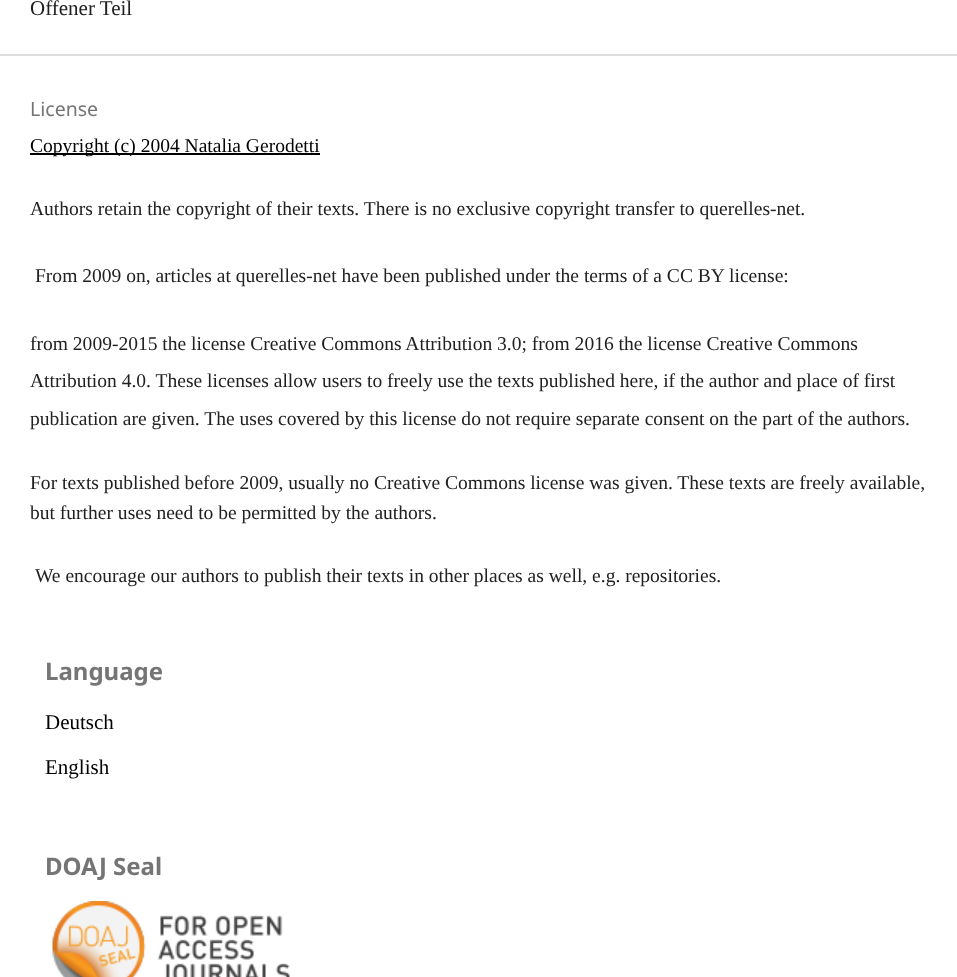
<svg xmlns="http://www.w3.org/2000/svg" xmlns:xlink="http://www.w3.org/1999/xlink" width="957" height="977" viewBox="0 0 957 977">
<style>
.cls-1{font:21px Liberation Serif;fill:#212121}
.cls-2{font:19.55px Noto Sans;fill:#757575}
.cls-3{font:19.55px Liberation Serif;fill:#000000}
.cls-4{font:19.55px Liberation Serif;fill:#212121}
.cls-5{font:bold 24px Noto Sans;fill:#757575}
.cls-6{font:21px Liberation Serif;fill:#000000}
</style>
<rect width="100%" height="100%" fill="#ffffff"/>
<rect fill="#dddddd" x="0" y="54" width="957" height="2"/>
<rect fill="#000000" x="30" y="153" width="290" height="2"/>
<image xlink:href="image0.png" x="52" y="901" width="238" height="76"/>
<text class="cls-1" x="30" y="15">Offener Teil</text>
<text class="cls-2" x="30" y="116">License</text>
<text class="cls-3" x="30" y="152">Copyright (c) 2004 Natalia Gerodetti</text>
<text class="cls-4" x="30" y="215">Authors retain the copyright of their texts. There is no exclusive copyright transfer to querelles-net.</text>
<text class="cls-4" x="35" y="282">From 2009 on, articles at querelles-net have been published under the terms of a CC BY license:</text>
<text class="cls-4"><tspan x="30" y="350">from 2009-2015 the license Creative Commons Attribution 3.0; from 2016 the license Creative Commons</tspan><tspan x="30" y="387">Attribution 4.0. These licenses allow users to freely use the texts published here, if the author and place of first</tspan><tspan x="30" y="425">publication are given. The uses covered by this license do not require separate consent on the part of the authors.</tspan></text>
<text class="cls-4"><tspan x="30" y="489">For texts published before 2009, usually no Creative Commons license was given. These texts are freely available,</tspan><tspan x="30" y="519">but further uses need to be permitted by the authors.</tspan></text>
<text class="cls-4" x="35" y="582">We encourage our authors to publish their texts in other places as well, e.g. repositories.</text>
<text class="cls-5" x="45" y="680">Language</text>
<text class="cls-6" x="45" y="729">Deutsch</text>
<text class="cls-6" x="45" y="774">English</text>
<text class="cls-5" x="45" y="875">DOAJ Seal</text>
</svg>
